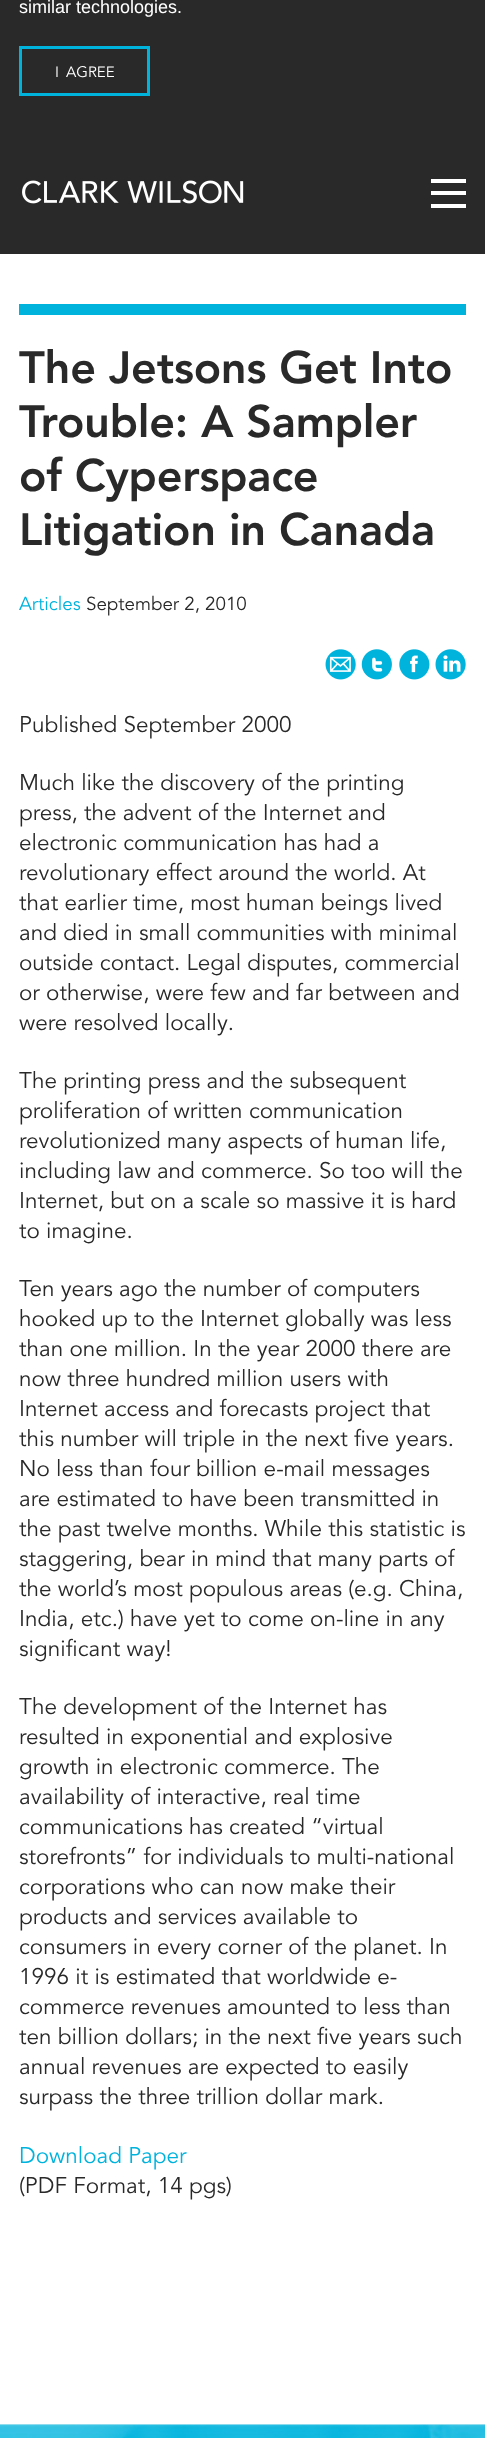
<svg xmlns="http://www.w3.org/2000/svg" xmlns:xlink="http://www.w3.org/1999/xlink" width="485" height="2438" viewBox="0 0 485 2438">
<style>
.cls-1{font:18px Liberation Sans;fill:#ffffff}
.cls-2{font:15px Avenir;fill:#ffffff}
.cls-3{font:900 45px Avenir;letter-spacing:-0.25px;fill:#292929}
.cls-4{font:18.75px Avenir;fill:#00b3dd}
.cls-5{font:18.75px Avenir;fill:#292929}
.cls-6{font:22.5px Avenir;fill:#292929}
.cls-7{font:22.5px Avenir;fill:#00b3dd}
</style>
<rect width="100%" height="100%" fill="#ffffff"/>
<rect fill="#292929" x="0" y="0" width="485" height="254"/>
<image xlink:href="image0.png" x="22" y="180" width="222" height="24"/>
<rect fill="#ffffff" x="431" y="191" width="35" height="4"/>
<rect fill="#ffffff" x="431" y="179" width="35" height="4"/>
<rect fill="#ffffff" x="431" y="204" width="35" height="4"/>
<rect fill="none" stroke="#00b3dd" stroke-width="3" x="20.5" y="47.5" width="128" height="47"/>
<rect fill="#00b3dd" x="19" y="304" width="447" height="11"/>
<image xlink:href="image1.png" x="325" y="649" width="31" height="31"/>
<image xlink:href="image2.png" x="361" y="649" width="31" height="31"/>
<image xlink:href="image3.png" x="399" y="649" width="31" height="31"/>
<image xlink:href="image4.png" x="435" y="649" width="31" height="31"/>
<image xlink:href="image5.png" x="0" y="2424" width="485" height="14"/>
<text class="cls-1" x="19" y="13">similar technologies.</text>
<text class="cls-2" x="55" y="77">I</text>
<text class="cls-2" x="66" y="77">AGREE</text>
<text class="cls-3"><tspan x="19" y="383">The Jetsons Get Into</tspan><tspan x="19" y="437">Trouble: A Sampler</tspan><tspan x="19" y="491">of Cyperspace</tspan><tspan x="19" y="545">Litigation in Canada</tspan></text>
<text class="cls-4" x="19" y="610">Articles</text>
<text class="cls-5" x="86" y="610">September 2, 2010</text>
<text class="cls-6" x="19" y="732">Published September 2000</text>
<text class="cls-6"><tspan x="19" y="790">Much like the discovery of the printing</tspan><tspan x="19" y="820">press, the advent of the Internet and</tspan><tspan x="19" y="850">electronic communication has had a</tspan><tspan x="19" y="880">revolutionary effect around the world. At</tspan><tspan x="19" y="910">that earlier time, most human beings lived</tspan><tspan x="19" y="940">and died in small communities with minimal</tspan><tspan x="19" y="970">outside contact. Legal disputes, commercial</tspan><tspan x="19" y="1000">or otherwise, were few and far between and</tspan><tspan x="19" y="1030">were resolved locally.</tspan></text>
<text class="cls-6"><tspan x="19" y="1088">The printing press and the subsequent</tspan><tspan x="19" y="1118">proliferation of written communication</tspan><tspan x="19" y="1148">revolutionized many aspects of human life,</tspan><tspan x="19" y="1178">including law and commerce. So too will the</tspan><tspan x="19" y="1208">Internet, but on a scale so massive it is hard</tspan><tspan x="19" y="1238">to imagine.</tspan></text>
<text class="cls-6"><tspan x="19" y="1296">Ten years ago the number of computers</tspan><tspan x="19" y="1326">hooked up to the Internet globally was less</tspan><tspan x="19" y="1356">than one million. In the year 2000 there are</tspan><tspan x="19" y="1386">now three hundred million users with</tspan><tspan x="19" y="1416">Internet access and forecasts project that</tspan><tspan x="19" y="1446">this number will triple in the next five years.</tspan><tspan x="19" y="1476">No less than four billion e-mail messages</tspan><tspan x="19" y="1506">are estimated to have been transmitted in</tspan><tspan x="19" y="1536">the past twelve months. While this statistic is</tspan><tspan x="19" y="1566">staggering, bear in mind that many parts of</tspan><tspan x="19" y="1596">the world’s most populous areas (e.g. China,</tspan><tspan x="19" y="1626">India, etc.) have yet to come on-line in any</tspan><tspan x="19" y="1656">significant way!</tspan></text>
<text class="cls-6"><tspan x="19" y="1714">The development of the Internet has</tspan><tspan x="19" y="1744">resulted in exponential and explosive</tspan><tspan x="19" y="1774">growth in electronic commerce. The</tspan><tspan x="19" y="1804">availability of interactive, real time</tspan><tspan x="19" y="1834">communications has created “virtual</tspan><tspan x="19" y="1864">storefronts” for individuals to multi-national</tspan><tspan x="19" y="1894">corporations who can now make their</tspan><tspan x="19" y="1924">products and services available to</tspan><tspan x="19" y="1954">consumers in every corner of the planet. In</tspan><tspan x="19" y="1984">1996 it is estimated that worldwide e-</tspan><tspan x="19" y="2014">commerce revenues amounted to less than</tspan><tspan x="19" y="2044">ten billion dollars; in the next five years such</tspan><tspan x="19" y="2074">annual revenues are expected to easily</tspan><tspan x="19" y="2104">surpass the three trillion dollar mark.</tspan></text>
<text class="cls-7" x="19" y="2163">Download Paper</text>
<text class="cls-6" x="19" y="2193">(PDF Format, 14 pgs)</text>
</svg>
